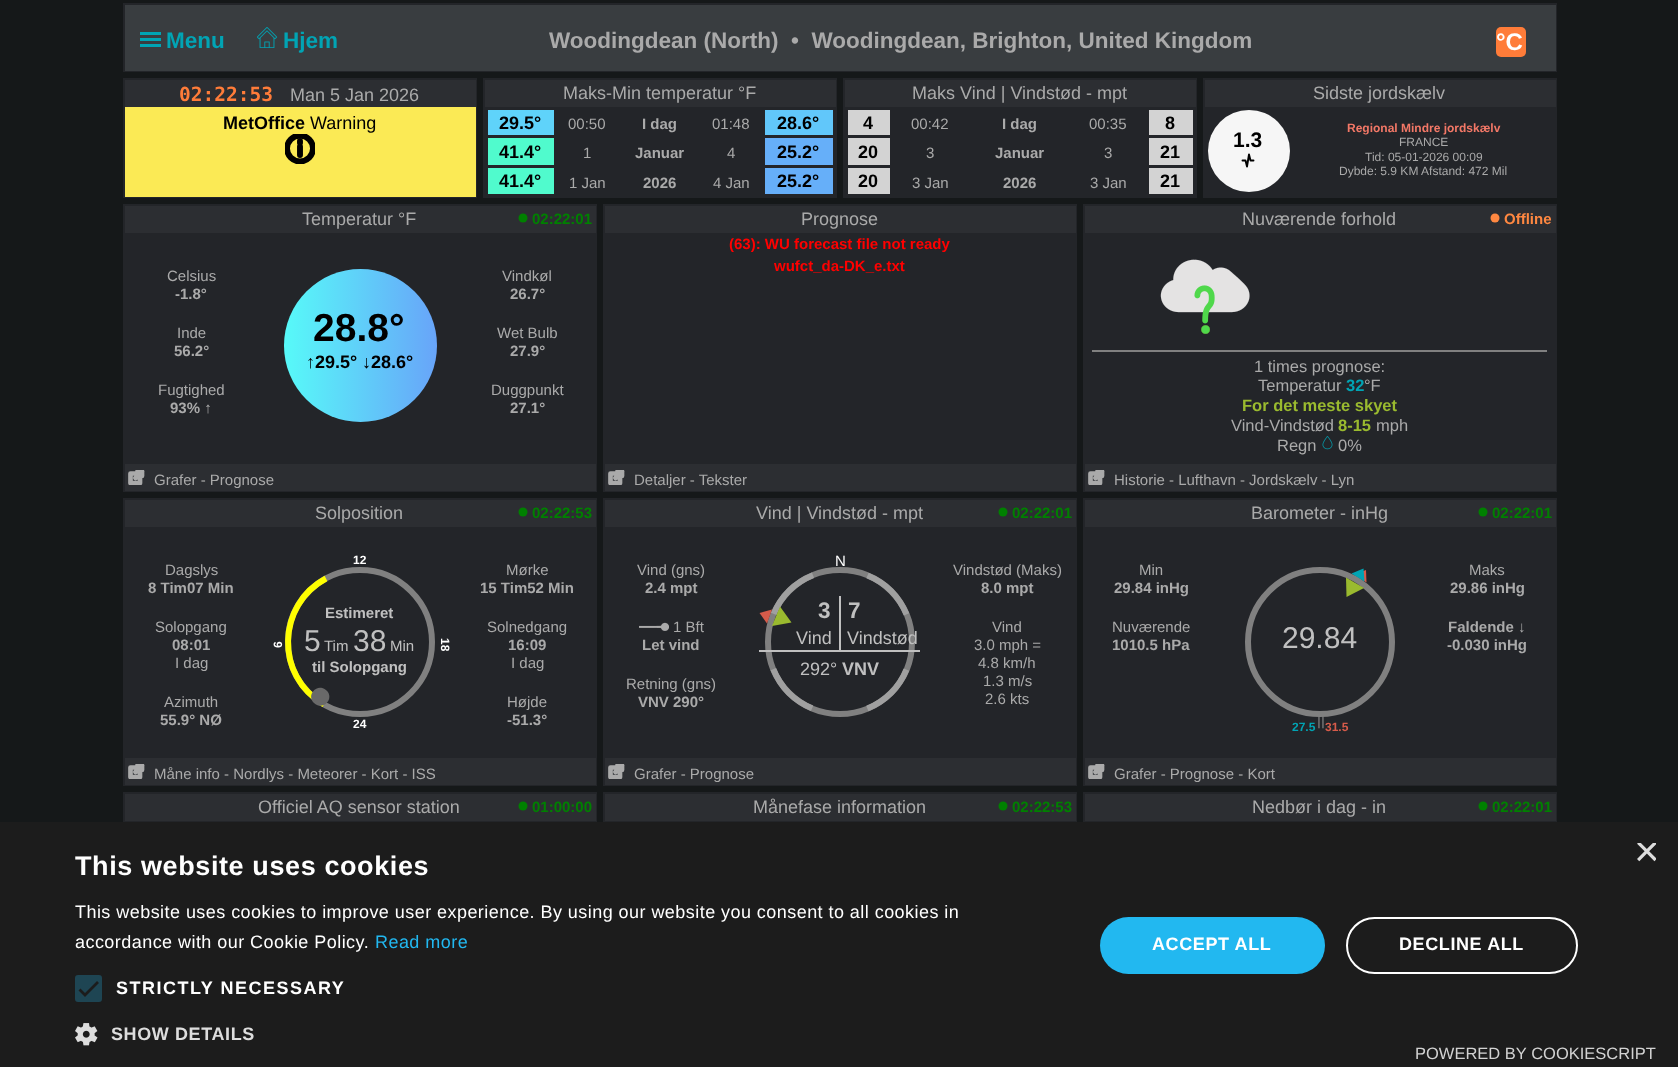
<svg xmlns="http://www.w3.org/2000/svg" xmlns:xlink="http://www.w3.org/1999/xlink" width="1678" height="1067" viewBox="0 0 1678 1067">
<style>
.cls-1{font:bold 22.5px Liberation Sans;fill:#01a4b4}
.cls-2{font:bold 22.5px Liberation Sans;fill:#aaaaaa}
.cls-3{font:bold 24px Liberation Sans;fill:#ffffff}
.cls-4{font:bold 19.5px DejaVu Sans Mono;fill:#ff7c39}
.cls-5{font:18px Liberation Sans;fill:#aaaaaa}
.cls-6{font:bold 18px Liberation Sans;fill:#000000}
.cls-7{font:18px Liberation Sans;fill:#000000}
.cls-8{font:15px Liberation Sans;fill:#aaaaaa}
.cls-9{font:bold 15px Liberation Sans;fill:#aaaaaa}
.cls-10{font:bold 21px Liberation Sans;fill:#000000}
.cls-11{font:bold 12px Liberation Sans;fill:#f37867}
.cls-12{font:12px Liberation Sans;fill:#aaaaaa}
.cls-13{font:bold 15px Liberation Sans;fill:#008000}
.cls-14{font:bold 39px Liberation Sans;fill:#000000}
.cls-15{font:bold 15px Liberation Sans;fill:#ff0000}
.cls-16{font:bold 15px Liberation Sans;fill:#ff8841}
.cls-17{font:16.5px Liberation Sans;fill:#aaaaaa}
.cls-18{font:bold 16.5px Liberation Sans;fill:#01a4b4}
.cls-19{font:bold 16.5px Liberation Sans;fill:#9aba2f}
.cls-20{font:bold 12px Liberation Sans;fill:#ffffff}
.cls-21{font:bold 15px Liberation Sans;fill:#c0c0c0}
.cls-22{font:30px Liberation Sans;fill:#c0c0c0}
.cls-23{font:15px Liberation Sans;fill:#c0c0c0}
.cls-24{font:15px Liberation Sans;fill:#ffffff}
.cls-25{font:bold 22.5px Liberation Sans;fill:#c0c0c0}
.cls-26{font:18px Liberation Sans;fill:#c0c0c0}
.cls-27{font:bold 18px Liberation Sans;fill:#c0c0c0}
.cls-28{font:bold 12px Liberation Sans;fill:#01a4b4}
.cls-29{font:15px Liberation Sans;fill:#808080}
.cls-30{font:bold 12px Liberation Sans;fill:#d65b4a}
.cls-31{font:44px Liberation Sans;fill:#dddddd}
.cls-32{font:bold 27px Liberation Sans;letter-spacing:0.6px;fill:#ffffff}
.cls-33{font:18px Liberation Sans;letter-spacing:0.45px;fill:#ffffff}
.cls-34{font:18px Liberation Sans;letter-spacing:0.45px;fill:#22b8f0}
.cls-35{font:bold 18px Liberation Sans;letter-spacing:1.5px;fill:#ffffff}
.cls-36{font:bold 18px Liberation Sans;letter-spacing:0.6px;fill:#dddddd}
.cls-37{font:bold 18px Liberation Sans;letter-spacing:0.6px;fill:#ffffff}
.cls-38{font:16.5px Liberation Sans;fill:#d2d2d2}
</style>
<defs>
<clipPath id="clip1"><rect x="285" y="134" width="30" height="30"/></clipPath>
<linearGradient id="g1" gradientUnits="userSpaceOnUse" x1="284" y1="345" x2="437" y2="345"><stop offset="0" stop-color="#57faf9"/><stop offset="1" stop-color="#68a4f9"/></linearGradient>
<clipPath id="clip2"><rect x="128" y="470" width="18" height="15"/></clipPath>
<clipPath id="clip3"><rect x="608" y="470" width="18" height="15"/></clipPath>
<clipPath id="clip4"><rect x="1088" y="470" width="18" height="15"/></clipPath>
<clipPath id="clip5"><rect x="128" y="764" width="18" height="15"/></clipPath>
<clipPath id="clip6"><rect x="608" y="764" width="18" height="15"/></clipPath>
<clipPath id="clip7"><rect x="1088" y="764" width="18" height="15"/></clipPath>
<clipPath id="clip8"><rect x="1634" y="843" width="22" height="23"/></clipPath>
</defs>
<rect width="100%" height="100%" fill="#151819"/>
<rect fill="#232529" x="123" y="3" width="1434" height="69"/>
<rect fill="#393d40" x="125" y="5" width="1431" height="66"/>
<rect fill="#01a4b4" x="140" y="32" width="21" height="3"/>
<rect fill="#01a4b4" x="140" y="38" width="21" height="3"/>
<rect fill="#01a4b4" x="140" y="44" width="21" height="3"/>
<image xlink:href="image0.png" x="257" y="27" width="21" height="21"/>
<rect fill="#ff7c39" x="1496" y="27" width="30" height="30" rx="5"/>
<rect fill="#232529" x="123" y="78" width="354" height="120"/>
<rect fill="#2c2e32" x="125" y="80" width="351" height="27"/>
<rect fill="#fbea55" x="125" y="107" width="351" height="90"/>
<path fill="none" stroke="#000000" stroke-width="5.9" stroke-linecap="round" stroke-linejoin="round" d="M300 146.5V155M300 141V143"/>
<g clip-path="url(#clip1)">
<circle fill="none" stroke="#000000" stroke-width="5.9" cx="300" cy="148.5" r="13"/>
</g>
<rect fill="#232529" x="483" y="78" width="354" height="120"/>
<rect fill="#2c2e32" x="485" y="80" width="351" height="27"/>
<rect fill="#5fd3fa" x="488" y="110" width="66" height="25"/>
<rect fill="#61c7fa" x="765" y="110" width="68" height="25"/>
<rect fill="#50fbcd" x="488" y="138" width="66" height="27"/>
<rect fill="#66aff9" x="765" y="138" width="68" height="27"/>
<rect fill="#50fbcd" x="488" y="168" width="66" height="26"/>
<rect fill="#66aff9" x="765" y="168" width="68" height="26"/>
<rect fill="#232529" x="843" y="78" width="354" height="120"/>
<rect fill="#2c2e32" x="845" y="80" width="351" height="27"/>
<rect fill="#d3d3d3" x="848" y="110" width="42" height="25"/>
<rect fill="#d3d3d3" x="1149" y="110" width="44" height="25"/>
<rect fill="#d3d3d3" x="848" y="138" width="42" height="27"/>
<rect fill="#d3d3d3" x="1149" y="138" width="44" height="27"/>
<rect fill="#d3d3d3" x="848" y="168" width="42" height="26"/>
<rect fill="#d3d3d3" x="1149" y="168" width="44" height="26"/>
<rect fill="#232529" x="1203" y="78" width="354" height="120"/>
<rect fill="#2c2e32" x="1205" y="80" width="351" height="27"/>
<circle fill="#f6f6f6" cx="1249" cy="151" r="41"/>
<path fill="none" stroke="#000000" stroke-width="1.9" stroke-linecap="round" stroke-linejoin="round" d="M1242.5 160.5H1245.5L1247 166.5L1249 154.5L1250.5 160.5H1253.5"/>
<rect fill="#232529" x="123" y="204" width="474" height="288"/>
<rect fill="#2c2e32" x="125" y="206" width="471" height="27"/>
<circle fill="#008000" cx="523" cy="218" r="4.5"/>
<circle fill="url(#g1)" cx="360.5" cy="345.5" r="76.5"/>
<rect fill="#2c2e32" x="125" y="464" width="471" height="27"/>
<g clip-path="url(#clip2)">
<path fill="none" stroke="#aaaaaa" stroke-width="4.7" stroke-linecap="round" stroke-linejoin="round" d="M135.5 473.5H130.5V483H140V478M137.5 471.5H142V476M142 471.5L135.5 478"/>
</g>
<rect fill="#232529" x="603" y="204" width="474" height="288"/>
<rect fill="#2c2e32" x="605" y="206" width="471" height="27"/>
<rect fill="#2c2e32" x="605" y="464" width="471" height="27"/>
<g clip-path="url(#clip3)">
<path fill="none" stroke="#aaaaaa" stroke-width="4.7" stroke-linecap="round" stroke-linejoin="round" d="M615.5 473.5H610.5V483H620V478M617.5 471.5H622V476M622 471.5L615.5 478"/>
</g>
<rect fill="#232529" x="1083" y="204" width="474" height="288"/>
<rect fill="#2c2e32" x="1085" y="206" width="471" height="27"/>
<circle fill="#ff8841" cx="1495" cy="218" r="4.5"/>
<image xlink:href="image1.png" x="1160" y="259" width="90" height="75"/>
<rect fill="#808080" x="1092" y="350" width="455" height="2"/>
<image xlink:href="image2.png" x="1322" y="436" width="11" height="14"/>
<rect fill="#2c2e32" x="1085" y="464" width="471" height="27"/>
<g clip-path="url(#clip4)">
<path fill="none" stroke="#aaaaaa" stroke-width="4.7" stroke-linecap="round" stroke-linejoin="round" d="M1095.5 473.5H1090.5V483H1100V478M1097.5 471.5H1102V476M1102 471.5L1095.5 478"/>
</g>
<rect fill="#232529" x="123" y="498" width="474" height="288"/>
<rect fill="#2c2e32" x="125" y="500" width="471" height="27"/>
<circle fill="#008000" cx="523" cy="512" r="4.5"/>
<circle fill="none" stroke="#808080" stroke-width="6" cx="360" cy="642" r="72"/>
<path fill="none" stroke="#ffff00" stroke-width="6" d="M324 704.5C274.5 676 277 604.5 326 578.5"/>
<path fill="#696969" d="M327.5 702C320.5 711.5 306 701 313 691.5C320 682 334.5 692.5 327.5 702Z"/>
<rect fill="#2c2e32" x="125" y="758" width="471" height="27"/>
<g clip-path="url(#clip5)">
<path fill="none" stroke="#aaaaaa" stroke-width="4.7" stroke-linecap="round" stroke-linejoin="round" d="M135.5 767.5H130.5V777H140V772M137.5 765.5H142V770M142 765.5L135.5 772"/>
</g>
<rect fill="#232529" x="603" y="498" width="474" height="288"/>
<rect fill="#2c2e32" x="605" y="500" width="471" height="27"/>
<circle fill="#008000" cx="1003" cy="512" r="4.5"/>
<image xlink:href="image3.png" x="639" y="622" width="30" height="9"/>
<circle fill="none" stroke="#808080" stroke-width="6" cx="840" cy="642" r="72"/>
<path fill="none" stroke="#a0a0a0" stroke-width="6" stroke-dasharray="56.55 56.55" d="M867.5 575.5C904.5 590.5 921.5 633 906.5 669.5C891.5 706.5 849 723.5 812.5 708.5C775.5 693.5 758.5 651 773.5 614.5C788.5 577.5 831 560.5 867.5 575.5Z"/>
<path fill="#9aba2f" d="M780 606.5L791.5 622.5L772 626Z"/>
<path fill="#d65b4a" d="M772 609.5L759.5 613L767 623.5Z"/>
<rect fill="#c0c0c0" x="759" y="650" width="161" height="2"/>
<rect fill="#c0c0c0" x="839" y="596" width="2" height="55"/>
<rect fill="#2c2e32" x="605" y="758" width="471" height="27"/>
<g clip-path="url(#clip6)">
<path fill="none" stroke="#aaaaaa" stroke-width="4.7" stroke-linecap="round" stroke-linejoin="round" d="M615.5 767.5H610.5V777H620V772M617.5 765.5H622V770M622 765.5L615.5 772"/>
</g>
<rect fill="#232529" x="1083" y="498" width="474" height="288"/>
<rect fill="#2c2e32" x="1085" y="500" width="471" height="27"/>
<circle fill="#008000" cx="1483" cy="512" r="4.5"/>
<circle fill="none" stroke="#808080" stroke-width="6" cx="1320" cy="642" r="72"/>
<path fill="#9aba2f" d="M1364 588L1346.5 597L1346 577.5Z"/>
<path fill="#d65b4a" d="M1366.5 582.5L1366 570L1354 574.5Z"/>
<path fill="#01a4b4" d="M1364.5 581.5L1363.5 568.5L1351.5 573.5Z"/>
<rect fill="#2c2e32" x="1085" y="758" width="471" height="27"/>
<g clip-path="url(#clip7)">
<path fill="none" stroke="#aaaaaa" stroke-width="4.7" stroke-linecap="round" stroke-linejoin="round" d="M1095.5 767.5H1090.5V777H1100V772M1097.5 765.5H1102V770M1102 765.5L1095.5 772"/>
</g>
<rect fill="#232529" x="123" y="792" width="474" height="30"/>
<rect fill="#2c2e32" x="125" y="794" width="471" height="27"/>
<circle fill="#008000" cx="523" cy="806" r="4.5"/>
<rect fill="#232529" x="603" y="792" width="474" height="30"/>
<rect fill="#2c2e32" x="605" y="794" width="471" height="27"/>
<circle fill="#008000" cx="1003" cy="806" r="4.5"/>
<rect fill="#232529" x="1083" y="792" width="474" height="30"/>
<rect fill="#2c2e32" x="1085" y="794" width="471" height="27"/>
<circle fill="#008000" cx="1483" cy="806" r="4.5"/>
<rect fill="#1c1c1c" x="0" y="822" width="1678" height="245"/>
<rect fill="#1e4553" x="75" y="975" width="27" height="27" rx="3"/>
<path fill="none" stroke="#1c1c1c" stroke-width="2.7" d="M79.5 989.5L85 995L98 982"/>
<image xlink:href="image4.png" x="75" y="1023" width="23" height="23"/>
<rect fill="#22b8f0" x="1100" y="917" width="225" height="57" rx="28.5"/>
<rect fill="none" stroke="#ffffff" stroke-width="2" x="1347" y="918" width="230" height="55" rx="27.5"/>
<text class="cls-1" x="166" y="48">Menu</text>
<text class="cls-1" x="283" y="48">Hjem</text>
<text class="cls-2" xml:space="preserve" x="549" y="48">Woodingdean (North)  •  Woodingdean, Brighton, United Kingdom</text>
<text class="cls-3" x="1496" y="50">°C</text>
<text class="cls-4" x="179" y="101">02:22:53</text>
<text class="cls-5" x="290" y="101">Man 5 Jan 2026</text>
<text class="cls-6" x="223" y="129">MetOffice</text>
<text class="cls-7" x="310" y="129">Warning</text>
<text class="cls-5" x="563" y="99">Maks-Min temperatur °F</text>
<text class="cls-6" x="499" y="129">29.5°</text>
<text class="cls-8" x="568" y="129">00:50</text>
<text class="cls-9" x="642" y="129">I dag</text>
<text class="cls-8" x="712" y="129">01:48</text>
<text class="cls-6" x="777" y="129">28.6°</text>
<text class="cls-6" x="499" y="158">41.4°</text>
<text class="cls-8" x="583" y="158">1</text>
<text class="cls-9" x="635" y="158">Januar</text>
<text class="cls-8" x="727" y="158">4</text>
<text class="cls-6" x="777" y="158">25.2°</text>
<text class="cls-6" x="499" y="187">41.4°</text>
<text class="cls-8" x="569" y="188">1 Jan</text>
<text class="cls-9" x="643" y="188">2026</text>
<text class="cls-8" x="713" y="188">4 Jan</text>
<text class="cls-6" x="777" y="187">25.2°</text>
<text class="cls-5" x="912" y="99">Maks Vind | Vindstød - mpt</text>
<text class="cls-6" x="863" y="129">4</text>
<text class="cls-8" x="911" y="129">00:42</text>
<text class="cls-9" x="1002" y="129">I dag</text>
<text class="cls-8" x="1089" y="129">00:35</text>
<text class="cls-6" x="1165" y="129">8</text>
<text class="cls-6" x="858" y="158">20</text>
<text class="cls-8" x="926" y="158">3</text>
<text class="cls-9" x="995" y="158">Januar</text>
<text class="cls-8" x="1104" y="158">3</text>
<text class="cls-6" x="1160" y="158">21</text>
<text class="cls-6" x="858" y="187">20</text>
<text class="cls-8" x="912" y="188">3 Jan</text>
<text class="cls-9" x="1003" y="188">2026</text>
<text class="cls-8" x="1090" y="188">3 Jan</text>
<text class="cls-6" x="1160" y="187">21</text>
<text class="cls-5" x="1313" y="99">Sidste jordskælv</text>
<text class="cls-10" x="1233" y="147">1.3</text>
<text class="cls-11" x="1347" y="132">Regional Mindre jordskælv</text>
<text class="cls-12" x="1399" y="146">FRANCE</text>
<text class="cls-12" x="1365" y="161">Tid: 05-01-2026 00:09</text>
<text class="cls-12" x="1339" y="175">Dybde: 5.9 KM Afstand: 472 Mil</text>
<text class="cls-5" x="302" y="225">Temperatur °F</text>
<text class="cls-13" x="532" y="224">02:22:01</text>
<text class="cls-8" x="167" y="281">Celsius</text>
<text class="cls-9" x="175" y="299">-1.8°</text>
<text class="cls-8" x="177" y="338">Inde</text>
<text class="cls-9" x="174" y="356">56.2°</text>
<text class="cls-8" x="158" y="395">Fugtighed</text>
<text class="cls-9" x="170" y="413">93% ↑</text>
<text class="cls-14" x="313" y="341">28.8°</text>
<text class="cls-7" x="306" y="368">↑</text>
<text class="cls-6" x="315" y="368">29.5°</text>
<text class="cls-7" x="362" y="368">↓</text>
<text class="cls-6" x="371" y="368">28.6°</text>
<text class="cls-8" x="502" y="281">Vindkøl</text>
<text class="cls-9" x="510" y="299">26.7°</text>
<text class="cls-8" x="497" y="338">Wet Bulb</text>
<text class="cls-9" x="510" y="356">27.9°</text>
<text class="cls-8" x="491" y="395">Duggpunkt</text>
<text class="cls-9" x="510" y="413">27.1°</text>
<text class="cls-8" x="154" y="485">Grafer - Prognose</text>
<text class="cls-5" x="801" y="225">Prognose</text>
<text class="cls-15" x="729" y="249">(63): WU forecast file not ready</text>
<text class="cls-15" x="774" y="271">wufct_da-DK_e.txt</text>
<text class="cls-8" x="634" y="485">Detaljer - Tekster</text>
<text class="cls-5" x="1242" y="225">Nuværende forhold</text>
<text class="cls-16" x="1504" y="224">Offline</text>
<text class="cls-17" x="1254" y="372">1 times prognose:</text>
<text class="cls-17" x="1258" y="391">Temperatur</text>
<text class="cls-18" x="1346" y="391">32</text>
<text class="cls-17" x="1364" y="391">°F</text>
<text class="cls-19" x="1242" y="411">For det meste skyet</text>
<text class="cls-17" x="1231" y="431">Vind-Vindstød</text>
<text class="cls-19" x="1338" y="431">8-15</text>
<text class="cls-17" x="1376" y="431">mph</text>
<text class="cls-17" x="1277" y="451">Regn</text>
<text class="cls-17" x="1338" y="451">0%</text>
<text class="cls-8" x="1114" y="485">Historie - Lufthavn - Jordskælv - Lyn</text>
<text class="cls-5" x="315" y="519">Solposition</text>
<text class="cls-13" x="532" y="518">02:22:53</text>
<text class="cls-8" x="165" y="575">Dagslys</text>
<text class="cls-9" x="148" y="593">8 Tim07 Min</text>
<text class="cls-8" x="155" y="632">Solopgang</text>
<text class="cls-9" x="172" y="650">08:01</text>
<text class="cls-8" x="175" y="668">I dag</text>
<text class="cls-8" x="164" y="707">Azimuth</text>
<text class="cls-9" x="160" y="725">55.9° NØ</text>
<text class="cls-20" x="353" y="564">12</text>
<text class="cls-20" x="282" y="648" transform="rotate(-90 282 648)">6</text>
<text class="cls-20" x="441" y="638" transform="rotate(90 441 638)">18</text>
<text class="cls-20" x="353" y="728">24</text>
<text class="cls-21" x="325" y="618">Estimeret</text>
<text class="cls-22" x="304" y="651">5</text>
<text class="cls-23" x="324" y="651">Tim</text>
<text class="cls-22" x="353" y="651">38</text>
<text class="cls-23" x="390" y="651">Min</text>
<text class="cls-21" x="312" y="672">til Solopgang</text>
<text class="cls-8" x="506" y="575">Mørke</text>
<text class="cls-9" x="480" y="593">15 Tim52 Min</text>
<text class="cls-8" x="487" y="632">Solnedgang</text>
<text class="cls-9" x="508" y="650">16:09</text>
<text class="cls-8" x="511" y="668">I dag</text>
<text class="cls-8" x="507" y="707">Højde</text>
<text class="cls-9" x="507" y="725">-51.3°</text>
<text class="cls-8" x="154" y="779">Måne info - Nordlys - Meteorer - Kort - ISS</text>
<text class="cls-5" x="756" y="519">Vind | Vindstød - mpt</text>
<text class="cls-13" x="1012" y="518">02:22:01</text>
<text class="cls-8" x="637" y="575">Vind (gns)</text>
<text class="cls-9" x="645" y="593">2.4 mpt</text>
<text class="cls-8" x="673" y="632">1 Bft</text>
<text class="cls-9" x="642" y="650">Let vind</text>
<text class="cls-8" x="626" y="689">Retning (gns)</text>
<text class="cls-9" x="638" y="707">VNV 290°</text>
<text class="cls-24" x="835" y="566">N</text>
<text class="cls-25" x="818" y="618">3</text>
<text class="cls-25" x="848" y="618">7</text>
<text class="cls-26" x="796" y="644">Vind</text>
<text class="cls-26" x="847" y="644">Vindstød</text>
<text class="cls-26" x="800" y="675">292°</text>
<text class="cls-27" x="842" y="675">VNV</text>
<text class="cls-8" x="953" y="575">Vindstød (Maks)</text>
<text class="cls-9" x="981" y="593">8.0 mpt</text>
<text class="cls-8" x="992" y="632">Vind</text>
<text class="cls-8" x="974" y="650">3.0 mph =</text>
<text class="cls-8" x="978" y="668">4.8 km/h</text>
<text class="cls-8" x="983" y="686">1.3 m/s</text>
<text class="cls-8" x="985" y="704">2.6 kts</text>
<text class="cls-8" x="634" y="779">Grafer - Prognose</text>
<text class="cls-5" x="1251" y="519">Barometer - inHg</text>
<text class="cls-13" x="1492" y="518">02:22:01</text>
<text class="cls-8" x="1139" y="575">Min</text>
<text class="cls-9" x="1114" y="593">29.84 inHg</text>
<text class="cls-8" x="1112" y="632">Nuværende</text>
<text class="cls-9" x="1112" y="650">1010.5 hPa</text>
<text class="cls-8" x="1469" y="575">Maks</text>
<text class="cls-9" x="1450" y="593">29.86 inHg</text>
<text class="cls-9" x="1448" y="632">Faldende ↓</text>
<text class="cls-9" x="1447" y="650">-0.030 inHg</text>
<text class="cls-22" x="1282" y="648">29.84</text>
<text class="cls-28" x="1292" y="731">27.5</text>
<text class="cls-29" x="1317" y="725">||</text>
<text class="cls-30" x="1325" y="731">31.5</text>
<text class="cls-8" x="1114" y="779">Grafer - Prognose - Kort</text>
<text class="cls-5" x="258" y="813">Officiel AQ sensor station</text>
<text class="cls-13" x="532" y="812">01:00:00</text>
<text class="cls-5" x="753" y="813">Månefase information</text>
<text class="cls-13" x="1012" y="812">02:22:53</text>
<text class="cls-5" x="1252" y="813">Nedbør i dag - in</text>
<text class="cls-13" x="1492" y="812">02:22:01</text>
<g clip-path="url(#clip8)">
<text class="cls-31" x="1634" y="866">×</text>
</g>
<text class="cls-32" x="75" y="875">This website uses cookies</text>
<text class="cls-33"><tspan x="75" y="918">This website uses cookies to improve user experience. By using our website you consent to all cookies in</tspan><tspan x="75" y="948">accordance with our Cookie Policy.</tspan></text>
<text class="cls-34" x="375" y="948">Read more</text>
<text class="cls-35" x="116" y="994">STRICTLY NECESSARY</text>
<text class="cls-36" x="111" y="1040">SHOW DETAILS</text>
<text class="cls-37" x="1152" y="950">ACCEPT ALL</text>
<text class="cls-37" x="1399" y="950">DECLINE ALL</text>
<text class="cls-38" x="1415" y="1059">POWERED BY COOKIESCRIPT</text>
</svg>
